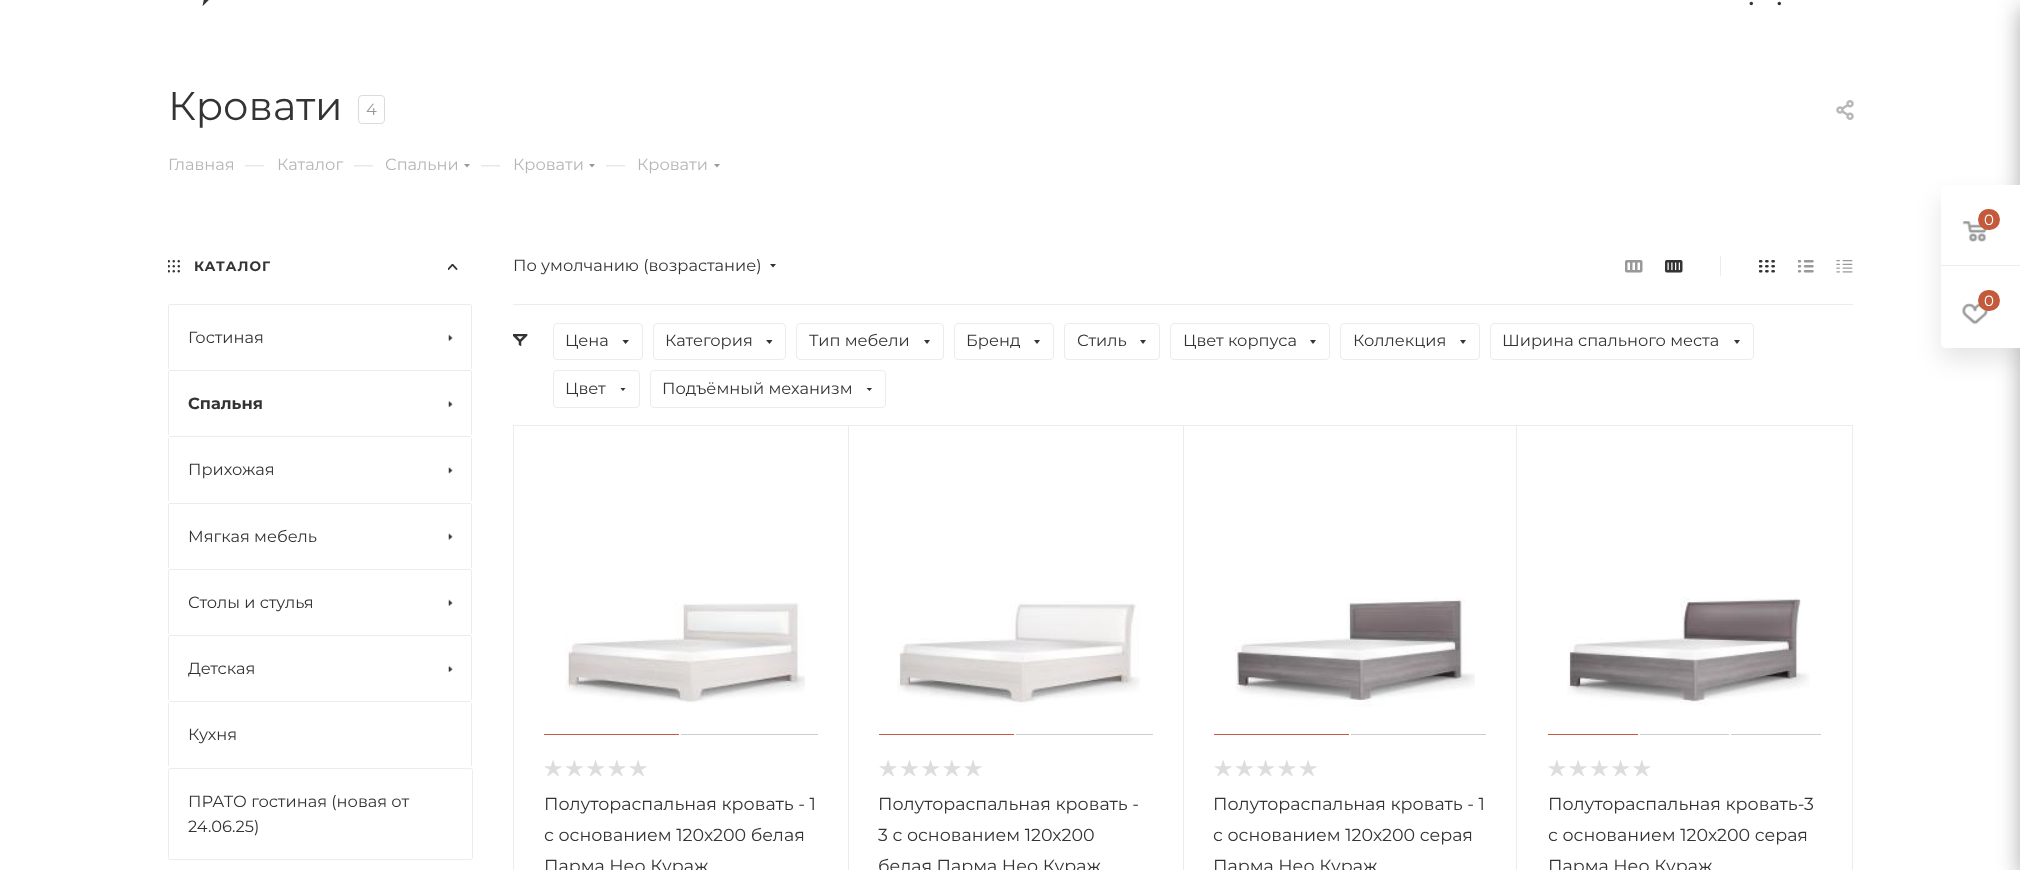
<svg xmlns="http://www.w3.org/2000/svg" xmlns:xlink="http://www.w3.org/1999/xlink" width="2020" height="870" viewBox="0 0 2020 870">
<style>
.cls-1{font:bold 17.5px Montserrat;fill:#333333}
.cls-2{font:40px Montserrat;fill:#333333}
.cls-3{font:16.25px Montserrat;fill:#999999}
.cls-4{font:16.25px Montserrat;fill:#b6b5b5}
.cls-5{font:19px Montserrat;fill:#dddddd}
.cls-6{font:bold 13.75px Montserrat;letter-spacing:1px;fill:#333333}
.cls-7{font:16.25px Montserrat;fill:#333333}
.cls-8{font:bold 16.25px Montserrat;fill:#333333}
.cls-9{font:17.5px Montserrat;fill:#333333}
.cls-10{font:15px Montserrat;fill:#ffffff}
</style>
<defs>
<clipPath id="clip1"><rect x="620" y="388" width="6" height="4"/></clipPath>
<clipPath id="clip2"><rect x="866" y="388" width="7" height="4"/></clipPath>
</defs>
<rect width="100%" height="100%" fill="#ffffff"/>
<image xlink:href="image0.png" x="202" y="0" width="7" height="6"/>
<rect fill="none" stroke="#dbdbdb" x="358.5" y="95.5" width="26" height="28" rx="3.5"/>
<image xlink:href="image1.png" x="1836" y="100" width="18" height="20"/>
<path fill="#999999" fill-rule="evenodd" d="M464 164H470L467 167.5Z"/>
<path fill="#999999" fill-rule="evenodd" d="M589 164H595L592 167.5Z"/>
<path fill="#999999" fill-rule="evenodd" d="M714 164H720L717 167.5Z"/>
<image xlink:href="image2.png" x="168" y="260" width="12" height="13"/>
<image xlink:href="image3.png" x="448" y="264" width="10" height="6"/>
<rect fill="#ececec" x="169" y="304" width="302" height="1"/>
<rect fill="#ececec" x="471" y="305" width="1" height="64"/>
<rect fill="#ececec" x="168" y="305" width="1" height="64"/>
<image xlink:href="image4.png" x="448" y="334" width="5" height="7"/>
<rect fill="#ececec" x="169" y="370" width="302" height="1"/>
<rect fill="#ececec" x="471" y="371" width="1" height="64"/>
<rect fill="#ececec" x="168" y="371" width="1" height="64"/>
<image xlink:href="image5.png" x="448" y="400" width="5" height="8"/>
<rect fill="#ececec" x="169" y="436" width="302" height="1"/>
<rect fill="#ececec" x="471" y="438" width="1" height="63"/>
<rect fill="#ececec" x="168" y="438" width="1" height="63"/>
<image xlink:href="image6.png" x="448" y="467" width="5" height="7"/>
<rect fill="#ececec" x="169" y="503" width="302" height="1"/>
<rect fill="#ececec" x="471" y="504" width="1" height="64"/>
<rect fill="#ececec" x="168" y="504" width="1" height="64"/>
<image xlink:href="image7.png" x="448" y="533" width="5" height="7"/>
<rect fill="#ececec" x="169" y="569" width="302" height="1"/>
<rect fill="#ececec" x="471" y="570" width="1" height="64"/>
<rect fill="#ececec" x="168" y="570" width="1" height="64"/>
<image xlink:href="image4.png" x="448" y="599" width="5" height="7"/>
<rect fill="#ececec" x="169" y="635" width="302" height="1"/>
<rect fill="#ececec" x="471" y="636" width="1" height="64"/>
<rect fill="#ececec" x="168" y="636" width="1" height="64"/>
<image xlink:href="image5.png" x="448" y="665" width="5" height="8"/>
<rect fill="#ececec" x="169" y="701" width="302" height="1"/>
<rect fill="#ececec" x="471" y="703" width="1" height="63"/>
<rect fill="#ececec" x="168" y="703" width="1" height="63"/>
<rect fill="none" stroke="#ececec" x="168.5" y="768.5" width="304" height="91" rx="2"/>
<rect fill="#ececec" x="513" y="304" width="1340" height="1"/>
<path fill="#333333" fill-rule="evenodd" d="M770 264H776L773 267.5Z"/>
<image xlink:href="image8.png" x="1625" y="260" width="18" height="13"/>
<image xlink:href="image9.png" x="1665" y="260" width="18" height="13"/>
<rect fill="#ececec" x="1720" y="256" width="1" height="20"/>
<image xlink:href="image10.png" x="1759" y="260" width="16" height="13"/>
<image xlink:href="image11.png" x="1798" y="260" width="16" height="13"/>
<image xlink:href="image12.png" x="1836" y="260" width="17" height="13"/>
<image xlink:href="image13.png" x="513" y="334" width="15" height="12"/>
<rect fill="none" stroke="#ececec" x="553.5" y="323.5" width="89" height="36" rx="3.5"/>
<path fill="#333333" fill-rule="evenodd" d="M622.5 340H629L625.5 344Z"/>
<rect fill="none" stroke="#ececec" x="653.5" y="323.5" width="132" height="36" rx="3.5"/>
<path fill="#333333" fill-rule="evenodd" d="M766 340H772.5L769.5 344Z"/>
<rect fill="none" stroke="#ececec" x="796.5" y="323.5" width="147" height="36" rx="3.5"/>
<path fill="#333333" fill-rule="evenodd" d="M924 340H930L927 344Z"/>
<rect fill="none" stroke="#ececec" x="954.5" y="323.5" width="99" height="36" rx="3.5"/>
<path fill="#333333" fill-rule="evenodd" d="M1034 340H1040L1037 344Z"/>
<rect fill="none" stroke="#ececec" x="1064.5" y="323.5" width="95" height="36" rx="3.5"/>
<path fill="#333333" fill-rule="evenodd" d="M1140 340H1146L1143 344Z"/>
<rect fill="none" stroke="#ececec" x="1170.5" y="323.5" width="159" height="36" rx="3.5"/>
<path fill="#333333" fill-rule="evenodd" d="M1310 340H1316L1313 344Z"/>
<rect fill="none" stroke="#ececec" x="1340.5" y="323.5" width="139" height="36" rx="3.5"/>
<path fill="#333333" fill-rule="evenodd" d="M1460 340H1466L1463 344Z"/>
<rect fill="none" stroke="#ececec" x="1490.5" y="323.5" width="263" height="36" rx="3.5"/>
<path fill="#333333" fill-rule="evenodd" d="M1734 340H1740L1737 344Z"/>
<rect fill="none" stroke="#ececec" x="553.5" y="370.5" width="86" height="37" rx="3.5"/>
<g clip-path="url(#clip1)">
<path fill="#333333" fill-rule="evenodd" d="M620 387.5H626L623 391Z"/>
</g>
<rect fill="none" stroke="#ececec" x="650.5" y="370.5" width="235" height="37" rx="3.5"/>
<g clip-path="url(#clip2)">
<path fill="#333333" fill-rule="evenodd" d="M866 387.5H872.5L869.5 391Z"/>
</g>
<rect fill="none" stroke="#ececec" x="513.5" y="425.5" width="335" height="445"/>
<image xlink:href="image14.png" x="565" y="602" width="240" height="101"/>
<rect fill="#c35a3c" x="544" y="734" width="135" height="1"/>
<rect fill="#cdcdcd" x="681" y="734" width="137" height="1"/>
<image xlink:href="image15.png" x="544" y="760" width="18" height="16"/>
<image xlink:href="image16.png" x="565" y="760" width="18" height="16"/>
<image xlink:href="image17.png" x="587" y="760" width="18" height="16"/>
<image xlink:href="image18.png" x="608" y="760" width="18" height="16"/>
<image xlink:href="image15.png" x="629" y="760" width="18" height="16"/>
<rect fill="none" stroke="#ececec" x="848.5" y="425.5" width="335" height="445"/>
<image xlink:href="image19.png" x="897" y="601" width="243" height="105"/>
<rect fill="#c35a3c" x="879" y="734" width="135" height="1"/>
<rect fill="#cdcdcd" x="1016" y="734" width="137" height="1"/>
<image xlink:href="image15.png" x="879" y="760" width="18" height="16"/>
<image xlink:href="image16.png" x="900" y="760" width="18" height="16"/>
<image xlink:href="image17.png" x="922" y="760" width="18" height="16"/>
<image xlink:href="image18.png" x="943" y="760" width="18" height="16"/>
<image xlink:href="image15.png" x="964" y="760" width="18" height="16"/>
<rect fill="none" stroke="#ececec" x="1183.5" y="425.5" width="334" height="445"/>
<image xlink:href="image20.png" x="1235" y="597" width="240" height="110"/>
<rect fill="#c35a3c" x="1214" y="734" width="135" height="1"/>
<rect fill="#cdcdcd" x="1351" y="734" width="135" height="1"/>
<image xlink:href="image15.png" x="1214" y="760" width="18" height="16"/>
<image xlink:href="image16.png" x="1235" y="760" width="18" height="16"/>
<image xlink:href="image17.png" x="1257" y="760" width="18" height="16"/>
<image xlink:href="image18.png" x="1278" y="760" width="18" height="16"/>
<image xlink:href="image15.png" x="1299" y="760" width="18" height="16"/>
<rect fill="#ffffff" x="1517" y="426" width="1" height="444"/>
<rect fill="none" stroke="#ececec" x="1516.5" y="425.5" width="336" height="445"/>
<image xlink:href="image21.png" x="1567" y="597" width="243" height="109"/>
<rect fill="#c35a3c" x="1548" y="734" width="90" height="1"/>
<rect fill="#cdcdcd" x="1640" y="734" width="89" height="1"/>
<rect fill="#cdcdcd" x="1731" y="734" width="90" height="1"/>
<image xlink:href="image18.png" x="1548" y="760" width="18" height="16"/>
<image xlink:href="image15.png" x="1569" y="760" width="18" height="16"/>
<image xlink:href="image16.png" x="1590" y="760" width="18" height="16"/>
<image xlink:href="image17.png" x="1612" y="760" width="18" height="16"/>
<image xlink:href="image18.png" x="1633" y="760" width="18" height="16"/>
<rect fill="#2c2c2c" fill-opacity="0.4" filter="blur(11px)" x="2020" y="8" width="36" height="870" rx="2.5"/>
<rect fill="#000000" fill-opacity="0.1" filter="blur(12.5px)" x="1941" y="198" width="79" height="162" rx="5"/>
<path fill="#ffffff" d="M1946 185H2020V348H1946C1943 348 1941 346 1941 343V190C1941 187 1943 185 1946 185Z"/>
<rect fill="#ececec" x="1941" y="265" width="79" height="1"/>
<image xlink:href="image22.png" x="1962" y="221" width="25" height="21"/>
<rect fill="#c35a3c" x="1978" y="209" width="22" height="21" rx="10.5"/>
<image xlink:href="image23.png" x="1962" y="303" width="26" height="22"/>
<rect fill="#c35a3c" x="1978" y="290" width="22" height="21" rx="10.5"/>
<text class="cls-1" x="1749" y="5">.</text>
<text class="cls-1" x="1777" y="5">.</text>
<text class="cls-2" x="168" y="120">Кровати</text>
<text class="cls-3" x="366" y="115">4</text>
<text class="cls-4" x="168" y="170">Главная</text>
<text class="cls-5" x="245" y="171">—</text>
<text class="cls-4" x="277" y="170">Каталог</text>
<text class="cls-5" x="354" y="171">—</text>
<text class="cls-4" x="385" y="170">Спальни</text>
<text class="cls-5" x="481" y="171">—</text>
<text class="cls-4" x="513" y="170">Кровати</text>
<text class="cls-5" x="606" y="171">—</text>
<text class="cls-4" x="637" y="170">Кровати</text>
<text class="cls-6" x="194" y="271">КАТАЛОГ</text>
<text class="cls-7" x="188" y="343">Гостиная</text>
<text class="cls-8" x="188" y="409">Спальня</text>
<text class="cls-7" x="188" y="475">Прихожая</text>
<text class="cls-7" x="188" y="542">Мягкая мебель</text>
<text class="cls-7" x="188" y="608">Столы и стулья</text>
<text class="cls-7" x="188" y="674">Детская</text>
<text class="cls-7" x="188" y="740">Кухня</text>
<text class="cls-7"><tspan x="188" y="807">ПРАТО гостиная (новая от</tspan><tspan x="188" y="832">24.06.25)</tspan></text>
<text class="cls-7" x="513" y="271">По умолчанию (возрастание)</text>
<text class="cls-7" x="565" y="346">Цена</text>
<text class="cls-7" x="665" y="346">Категория</text>
<text class="cls-7" x="809" y="346">Тип мебели</text>
<text class="cls-7" x="966" y="346">Бренд</text>
<text class="cls-7" x="1077" y="346">Стиль</text>
<text class="cls-7" x="1183" y="346">Цвет корпуса</text>
<text class="cls-7" x="1353" y="346">Коллекция</text>
<text class="cls-7" x="1502" y="346">Ширина спального места</text>
<text class="cls-7" x="565" y="394">Цвет</text>
<text class="cls-7" x="662" y="394">Подъёмный механизм</text>
<text class="cls-9"><tspan x="544" y="810">Полутораспальная кровать - 1</tspan><tspan x="544" y="841">с основанием 120х200 белая</tspan><tspan x="544" y="872">Парма Нео Кураж</tspan></text>
<text class="cls-9"><tspan x="878" y="810">Полутораспальная кровать -</tspan><tspan x="878" y="841">3 с основанием 120х200</tspan><tspan x="878" y="872">белая Парма Нео Кураж</tspan></text>
<text class="cls-9"><tspan x="1213" y="810">Полутораспальная кровать - 1</tspan><tspan x="1213" y="841">с основанием 120х200 серая</tspan><tspan x="1213" y="872">Парма Нео Кураж</tspan></text>
<text class="cls-9"><tspan x="1548" y="810">Полутораспальная кровать-3</tspan><tspan x="1548" y="841">с основанием 120х200 серая</tspan><tspan x="1548" y="872">Парма Нео Кураж</tspan></text>
<text class="cls-10" x="1984" y="225">0</text>
<text class="cls-10" x="1984" y="306">0</text>
</svg>
